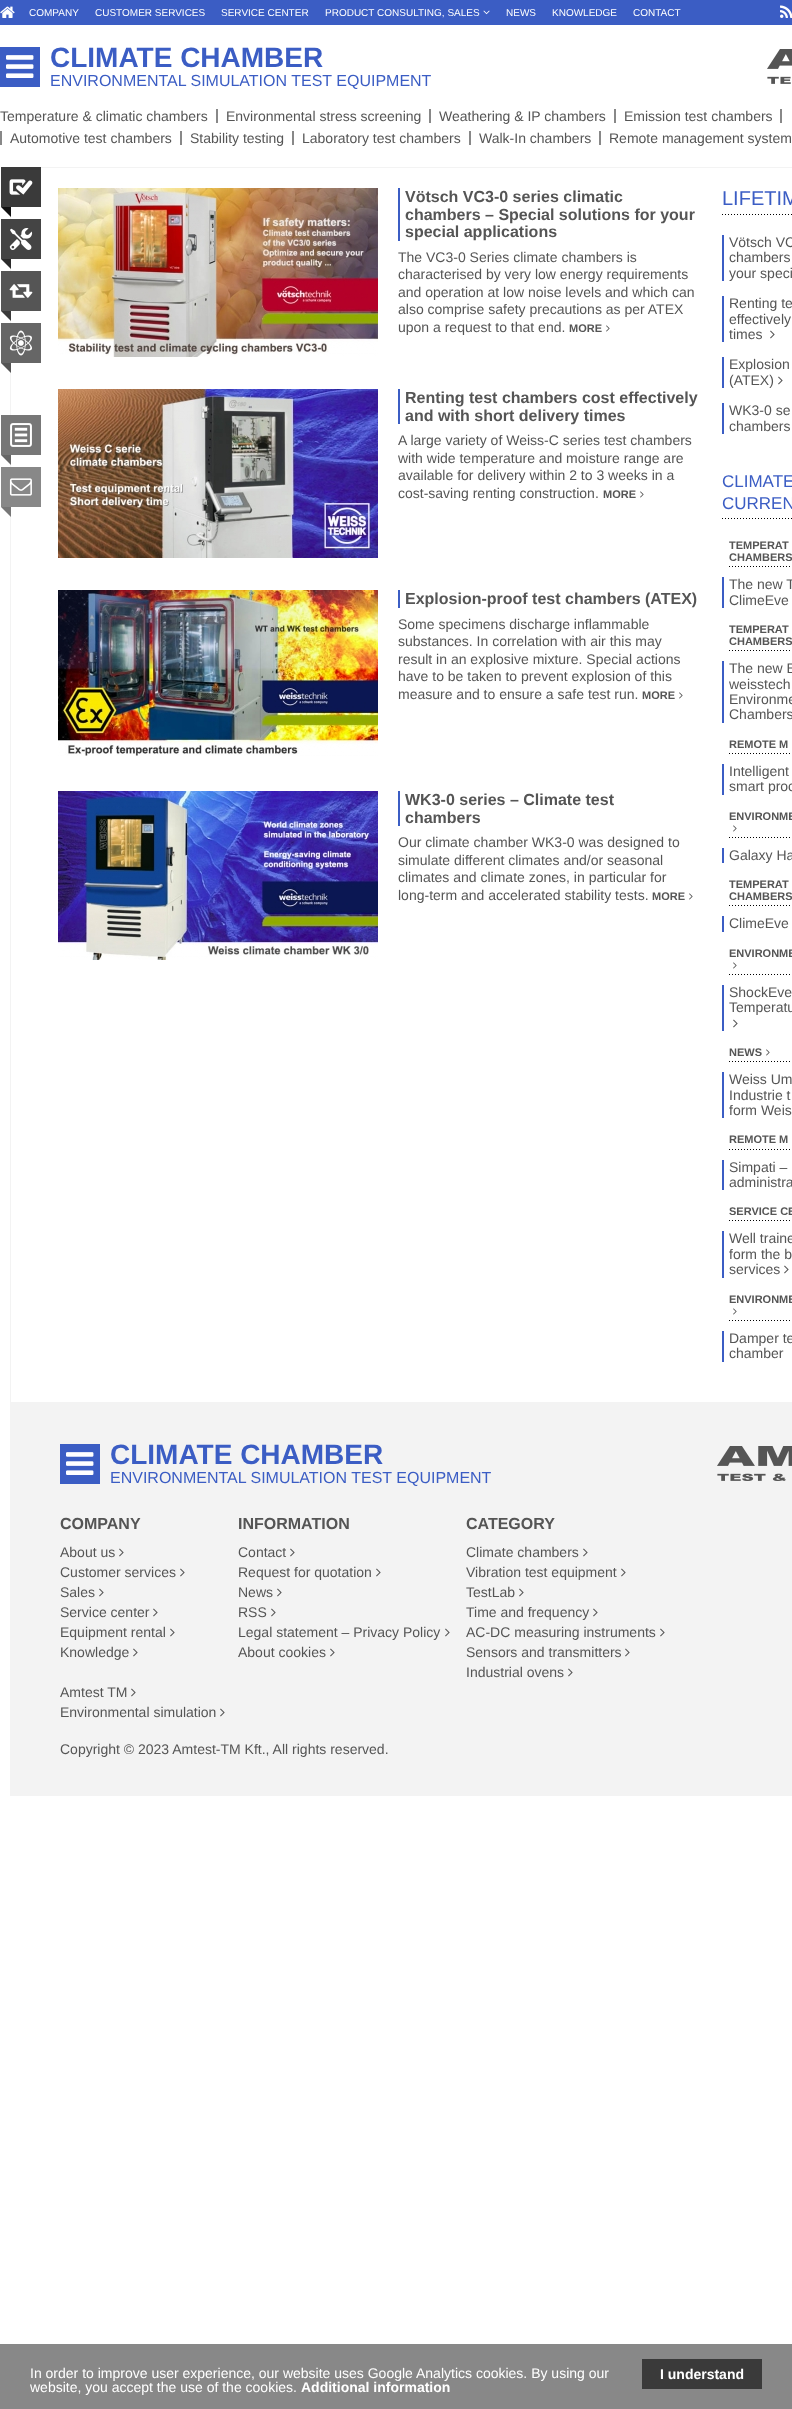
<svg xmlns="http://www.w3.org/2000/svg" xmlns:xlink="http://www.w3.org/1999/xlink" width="792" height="2409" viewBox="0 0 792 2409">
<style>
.cls-1{font:10px Liberation Sans;fill:#ffffff}
.cls-2{font:bold 28px Liberation Sans;fill:#3b5dc4}
.cls-3{font:16px Liberation Sans;fill:#3b5dc4}
.cls-4{font:14px Liberation Sans;fill:#555555}
.cls-5{font:bold 16px Liberation Sans;fill:#555555}
.cls-6{font:bold 11px Liberation Sans;fill:#555555}
.cls-7{font:20px Liberation Sans;fill:#3b5dc4}
.cls-8{font:17px Liberation Sans;fill:#3b5dc4}
.cls-9{font:14px Liberation Sans;fill:#ffffff}
.cls-10{font:bold 14px Liberation Sans;fill:#ffffff}
</style>
<rect width="100%" height="100%" fill="#ffffff"/>
<rect fill="#3b5dc4" x="0" y="0" width="792" height="25"/>
<image xlink:href="image0.png" x="0" y="6" width="15" height="12"/>
<image xlink:href="image1.png" x="483" y="10" width="7" height="5"/>
<image xlink:href="image2.png" x="780" y="5" width="12" height="13"/>
<rect fill="#3b5dc4" x="0" y="47" width="40" height="40"/>
<image xlink:href="image3.png" x="6" y="55" width="28" height="23"/>
<image xlink:href="image4.png" x="767" y="49" width="25" height="35"/>
<rect fill="#888888" x="216" y="109" width="2" height="14"/>
<rect fill="#888888" x="429" y="109" width="2" height="14"/>
<rect fill="#888888" x="614" y="109" width="2" height="14"/>
<rect fill="#888888" x="780" y="109" width="2" height="14"/>
<rect fill="#888888" x="0" y="131" width="2" height="14"/>
<rect fill="#888888" x="180" y="131" width="2" height="14"/>
<rect fill="#888888" x="292" y="131" width="2" height="14"/>
<rect fill="#888888" x="469" y="131" width="2" height="14"/>
<rect fill="#888888" x="599" y="131" width="2" height="14"/>
<rect fill="#f3f3f3" x="41" y="167" width="751" height="1"/>
<rect fill="#f3f3f3" x="10" y="216" width="1" height="1186"/>
<path fill="#111111" d="M11 197V217L1 207Z"/>
<rect fill="#3a3a3a" x="1" y="167" width="40" height="40"/>
<image xlink:href="image5.png" x="9" y="179" width="24" height="16"/>
<path fill="#2b2b2b" d="M11 249V269L1 259Z"/>
<rect fill="#444444" x="1" y="219" width="40" height="40"/>
<image xlink:href="image6.png" x="9" y="228" width="24" height="22"/>
<path fill="#3a3a3a" d="M11 301V321L1 311Z"/>
<rect fill="#555555" x="1" y="271" width="40" height="40"/>
<image xlink:href="image7.png" x="9" y="284" width="24" height="14"/>
<path fill="#555555" d="M11 353V373L1 363Z"/>
<rect fill="#666666" x="1" y="323" width="40" height="40"/>
<image xlink:href="image8.png" x="9" y="330" width="23" height="26"/>
<path fill="#666666" d="M11 445V465L1 455Z"/>
<rect fill="#777777" x="1" y="415" width="40" height="40"/>
<image xlink:href="image9.png" x="10" y="423" width="22" height="24"/>
<path fill="#777777" d="M11 497V517L1 507Z"/>
<rect fill="#888888" x="1" y="467" width="40" height="40"/>
<image xlink:href="image10.png" x="9" y="478" width="23" height="18"/>
<image xlink:href="image11.png" x="58" y="188" width="320" height="169"/>
<rect fill="#3b5dc4" x="398" y="188" width="2" height="53"/>
<image xlink:href="image12.png" x="606" y="325" width="4" height="7"/>
<image xlink:href="image13.png" x="58" y="389" width="320" height="169"/>
<rect fill="#3b5dc4" x="398" y="389" width="2" height="35"/>
<image xlink:href="image12.png" x="640" y="491" width="4" height="7"/>
<image xlink:href="image14.png" x="58" y="590" width="320" height="166"/>
<rect fill="#3b5dc4" x="398" y="590" width="2" height="18"/>
<image xlink:href="image12.png" x="679" y="692" width="4" height="7"/>
<image xlink:href="image15.png" x="58" y="791" width="320" height="169"/>
<rect fill="#3b5dc4" x="398" y="791" width="2" height="35"/>
<image xlink:href="image12.png" x="689" y="893" width="4" height="7"/>
<image xlink:href="image16.png" x="722" y="214" width="70" height="1"/>
<rect fill="#3b5dc4" x="722" y="235" width="2" height="46"/>
<rect fill="#3b5dc4" x="722" y="296" width="2" height="46"/>
<image xlink:href="image17.png" x="770" y="330" width="5" height="9"/>
<rect fill="#3b5dc4" x="722" y="357" width="2" height="31"/>
<image xlink:href="image17.png" x="778" y="376" width="5" height="9"/>
<rect fill="#3b5dc4" x="722" y="403" width="2" height="31"/>
<image xlink:href="image16.png" x="722" y="518" width="70" height="1"/>
<image xlink:href="image18.png" x="729" y="566" width="61" height="1"/>
<rect fill="#3b5dc4" x="722" y="577" width="2" height="31"/>
<image xlink:href="image18.png" x="729" y="650" width="61" height="1"/>
<rect fill="#3b5dc4" x="722" y="661" width="2" height="62"/>
<image xlink:href="image18.png" x="729" y="753" width="61" height="1"/>
<rect fill="#3b5dc4" x="722" y="764" width="2" height="31"/>
<image xlink:href="image18.png" x="729" y="837" width="61" height="1"/>
<image xlink:href="image12.png" x="733" y="825" width="4" height="7"/>
<rect fill="#3b5dc4" x="722" y="848" width="2" height="15"/>
<image xlink:href="image18.png" x="729" y="905" width="61" height="1"/>
<rect fill="#3b5dc4" x="722" y="916" width="2" height="16"/>
<image xlink:href="image18.png" x="729" y="974" width="61" height="1"/>
<image xlink:href="image12.png" x="733" y="962" width="4" height="7"/>
<rect fill="#3b5dc4" x="722" y="985" width="2" height="46"/>
<image xlink:href="image17.png" x="733" y="1019" width="5" height="9"/>
<image xlink:href="image18.png" x="729" y="1061" width="61" height="1"/>
<image xlink:href="image12.png" x="766" y="1049" width="4" height="7"/>
<rect fill="#3b5dc4" x="722" y="1072" width="2" height="46"/>
<image xlink:href="image18.png" x="729" y="1149" width="61" height="1"/>
<rect fill="#3b5dc4" x="722" y="1160" width="2" height="30"/>
<image xlink:href="image18.png" x="729" y="1220" width="61" height="1"/>
<rect fill="#3b5dc4" x="722" y="1231" width="2" height="47"/>
<image xlink:href="image17.png" x="784" y="1265" width="5" height="9"/>
<image xlink:href="image18.png" x="729" y="1320" width="61" height="1"/>
<image xlink:href="image12.png" x="733" y="1308" width="4" height="7"/>
<rect fill="#3b5dc4" x="722" y="1331" width="2" height="31"/>
<rect fill="#f3f3f3" x="10" y="1402" width="782" height="394"/>
<rect fill="#3b5dc4" x="60" y="1444" width="40" height="40"/>
<image xlink:href="image3.png" x="66" y="1452" width="28" height="23"/>
<image xlink:href="image19.png" x="717" y="1446" width="75" height="35"/>
<image xlink:href="image20.png" x="119" y="1548" width="5" height="9"/>
<image xlink:href="image20.png" x="180" y="1568" width="5" height="9"/>
<image xlink:href="image20.png" x="99" y="1588" width="5" height="9"/>
<image xlink:href="image20.png" x="153" y="1608" width="5" height="9"/>
<image xlink:href="image20.png" x="170" y="1628" width="5" height="9"/>
<image xlink:href="image20.png" x="133" y="1648" width="5" height="9"/>
<image xlink:href="image20.png" x="131" y="1688" width="5" height="9"/>
<image xlink:href="image20.png" x="220" y="1708" width="5" height="9"/>
<image xlink:href="image20.png" x="290" y="1548" width="5" height="9"/>
<image xlink:href="image20.png" x="376" y="1568" width="5" height="9"/>
<image xlink:href="image20.png" x="277" y="1588" width="5" height="9"/>
<image xlink:href="image20.png" x="271" y="1608" width="5" height="9"/>
<image xlink:href="image20.png" x="445" y="1628" width="5" height="9"/>
<image xlink:href="image20.png" x="330" y="1648" width="5" height="9"/>
<image xlink:href="image20.png" x="583" y="1548" width="5" height="9"/>
<image xlink:href="image20.png" x="621" y="1568" width="5" height="9"/>
<image xlink:href="image20.png" x="519" y="1588" width="5" height="9"/>
<image xlink:href="image20.png" x="593" y="1608" width="5" height="9"/>
<image xlink:href="image20.png" x="660" y="1628" width="5" height="9"/>
<image xlink:href="image20.png" x="625" y="1648" width="5" height="9"/>
<image xlink:href="image20.png" x="568" y="1668" width="5" height="9"/>
<rect fill="#888888" x="0" y="2344" width="792" height="65"/>
<rect fill="#3a3a3a" x="642" y="2359" width="120" height="30"/>
<text class="cls-1" x="29" y="16">COMPANY</text>
<text class="cls-1" x="95" y="16">CUSTOMER SERVICES</text>
<text class="cls-1" x="221" y="16">SERVICE CENTER</text>
<text class="cls-1" x="325" y="16">PRODUCT CONSULTING, SALES</text>
<text class="cls-1" x="506" y="16">NEWS</text>
<text class="cls-1" x="552" y="16">KNOWLEDGE</text>
<text class="cls-1" x="633" y="16">CONTACT</text>
<text class="cls-2" x="50" y="67">CLIMATE CHAMBER</text>
<text class="cls-3" x="50" y="86">ENVIRONMENTAL SIMULATION TEST EQUIPMENT</text>
<text class="cls-4" x="0" y="121">Temperature &amp; climatic chambers</text>
<text class="cls-4" x="226" y="121">Environmental stress screening</text>
<text class="cls-4" x="439" y="121">Weathering &amp; IP chambers</text>
<text class="cls-4" x="624" y="121">Emission test chambers</text>
<text class="cls-4" x="10" y="143">Automotive test chambers</text>
<text class="cls-4" x="190" y="143">Stability testing</text>
<text class="cls-4" x="302" y="143">Laboratory test chambers</text>
<text class="cls-4" x="479" y="143">Walk-In chambers</text>
<text class="cls-4" x="609" y="143">Remote management system</text>
<text class="cls-5"><tspan x="405" y="202">Vötsch VC3-0 series climatic</tspan><tspan x="405" y="220">chambers – Special solutions for your</tspan><tspan x="405" y="237">special applications</tspan></text>
<text class="cls-4"><tspan x="398" y="262">The VC3-0 Series climate chambers is</tspan><tspan x="398" y="279">characterised by very low energy requirements</tspan><tspan x="398" y="297">and operation at low noise levels and which can</tspan><tspan x="398" y="314">also comprise safety precautions as per ATEX</tspan><tspan x="398" y="332">upon a request to that end.</tspan></text>
<text class="cls-6" x="569" y="332">MORE</text>
<text class="cls-5"><tspan x="405" y="403">Renting test chambers cost effectively</tspan><tspan x="405" y="421">and with short delivery times</tspan></text>
<text class="cls-4"><tspan x="398" y="445">A large variety of Weiss-C series test chambers</tspan><tspan x="398" y="463">with wide temperature and moisture range are</tspan><tspan x="398" y="480">available for delivery within 2 to 3 weeks in a</tspan><tspan x="398" y="498">cost-saving renting construction.</tspan></text>
<text class="cls-6" x="603" y="498">MORE</text>
<text class="cls-5" x="405" y="604">Explosion-proof test chambers (ATEX)</text>
<text class="cls-4"><tspan x="398" y="629">Some specimens discharge inflammable</tspan><tspan x="398" y="646">substances. In correlation with air this may</tspan><tspan x="398" y="664">result in an explosive mixture. Special actions</tspan><tspan x="398" y="681">have to be taken to prevent explosion of this</tspan><tspan x="398" y="699">measure and to ensure a safe test run.</tspan></text>
<text class="cls-6" x="642" y="699">MORE</text>
<text class="cls-5"><tspan x="405" y="805">WK3-0 series – Climate test</tspan><tspan x="405" y="823">chambers</tspan></text>
<text class="cls-4"><tspan x="398" y="847">Our climate chamber WK3-0 was designed to</tspan><tspan x="398" y="865">simulate different climates and/or seasonal</tspan><tspan x="398" y="882">climates and climate zones, in particular for</tspan><tspan x="398" y="900">long-term and accelerated stability tests.</tspan></text>
<text class="cls-6" x="652" y="900">MORE</text>
<text class="cls-7" x="722" y="205">LIFETIM</text>
<text class="cls-4"><tspan x="729" y="247">Vötsch VC</tspan><tspan x="729" y="262">chambers</tspan><tspan x="729" y="278">your speci</tspan></text>
<text class="cls-4"><tspan x="729" y="308">Renting te</tspan><tspan x="729" y="324">effectively</tspan><tspan x="729" y="339">times</tspan></text>
<text class="cls-4"><tspan x="729" y="369">Explosion</tspan><tspan x="729" y="385">(ATEX)</tspan></text>
<text class="cls-4"><tspan x="729" y="415">WK3-0 se</tspan><tspan x="729" y="431">chambers</tspan></text>
<text class="cls-8"><tspan x="722" y="487">CLIMATE</tspan><tspan x="722" y="509">CURREN</tspan></text>
<text class="cls-6"><tspan x="729" y="549">TEMPERAT</tspan><tspan x="729" y="561">CHAMBERS</tspan></text>
<text class="cls-4"><tspan x="729" y="589">The new T</tspan><tspan x="729" y="605">ClimeEve</tspan></text>
<text class="cls-6"><tspan x="729" y="633">TEMPERAT</tspan><tspan x="729" y="645">CHAMBERS</tspan></text>
<text class="cls-4"><tspan x="729" y="673">The new E</tspan><tspan x="729" y="689">weisstech</tspan><tspan x="729" y="704">Environme</tspan><tspan x="729" y="719">Chambers</tspan></text>
<text class="cls-6" x="729" y="748">REMOTE M</text>
<text class="cls-4"><tspan x="729" y="776">Intelligent</tspan><tspan x="729" y="791">smart proc</tspan></text>
<text class="cls-6" x="729" y="820">ENVIRONME</text>
<text class="cls-4" x="729" y="860">Galaxy Ha</text>
<text class="cls-6"><tspan x="729" y="888">TEMPERAT</tspan><tspan x="729" y="900">CHAMBERS</tspan></text>
<text class="cls-4" x="729" y="928">ClimeEve</text>
<text class="cls-6" x="729" y="957">ENVIRONME</text>
<text class="cls-4"><tspan x="729" y="997">ShockEve</tspan><tspan x="729" y="1012">Temperatu</tspan></text>
<text class="cls-6" x="729" y="1056">NEWS</text>
<text class="cls-4"><tspan x="729" y="1084">Weiss Um</tspan><tspan x="729" y="1100">Industrie t</tspan><tspan x="729" y="1115">form Weis</tspan></text>
<text class="cls-6" x="729" y="1143">REMOTE M</text>
<text class="cls-4"><tspan x="729" y="1172">Simpati –</tspan><tspan x="729" y="1187">administra</tspan></text>
<text class="cls-6" x="729" y="1215">SERVICE CE</text>
<text class="cls-4"><tspan x="729" y="1243">Well traine</tspan><tspan x="729" y="1259">form the b</tspan><tspan x="729" y="1274">services</tspan></text>
<text class="cls-6" x="729" y="1303">ENVIRONME</text>
<text class="cls-4"><tspan x="729" y="1343">Damper te</tspan><tspan x="729" y="1358">chamber</tspan></text>
<text class="cls-2" x="110" y="1464">CLIMATE CHAMBER</text>
<text class="cls-3" x="110" y="1483">ENVIRONMENTAL SIMULATION TEST EQUIPMENT</text>
<text class="cls-5" x="60" y="1529">COMPANY</text>
<text class="cls-4"><tspan x="60" y="1557">About us</tspan><tspan x="60" y="1577">Customer services</tspan><tspan x="60" y="1597">Sales</tspan><tspan x="60" y="1617">Service center</tspan><tspan x="60" y="1637">Equipment rental</tspan><tspan x="60" y="1657">Knowledge</tspan></text>
<text class="cls-4"><tspan x="60" y="1697">Amtest TM</tspan><tspan x="60" y="1717">Environmental simulation</tspan></text>
<text class="cls-5" x="238" y="1529">INFORMATION</text>
<text class="cls-4"><tspan x="238" y="1557">Contact</tspan><tspan x="238" y="1577">Request for quotation</tspan><tspan x="238" y="1597">News</tspan><tspan x="238" y="1617">RSS</tspan><tspan x="238" y="1637">Legal statement – Privacy Policy</tspan><tspan x="238" y="1657">About cookies</tspan></text>
<text class="cls-5" x="466" y="1529">CATEGORY</text>
<text class="cls-4"><tspan x="466" y="1557">Climate chambers</tspan><tspan x="466" y="1577">Vibration test equipment</tspan><tspan x="466" y="1597">TestLab</tspan><tspan x="466" y="1617">Time and frequency</tspan><tspan x="466" y="1637">AC-DC measuring instruments</tspan><tspan x="466" y="1657">Sensors and transmitters</tspan><tspan x="466" y="1677">Industrial ovens</tspan></text>
<text class="cls-4" x="60" y="1754">Copyright © 2023 Amtest-TM Kft., All rights reserved.</text>
<text class="cls-9"><tspan x="30" y="2378">In order to improve user experience, our website uses Google Analytics cookies. By using our</tspan><tspan x="30" y="2392">website, you accept the use of the cookies.</tspan></text>
<text class="cls-10" x="301" y="2392">Additional information</text>
<text class="cls-10" x="660" y="2379">I understand</text>
</svg>
